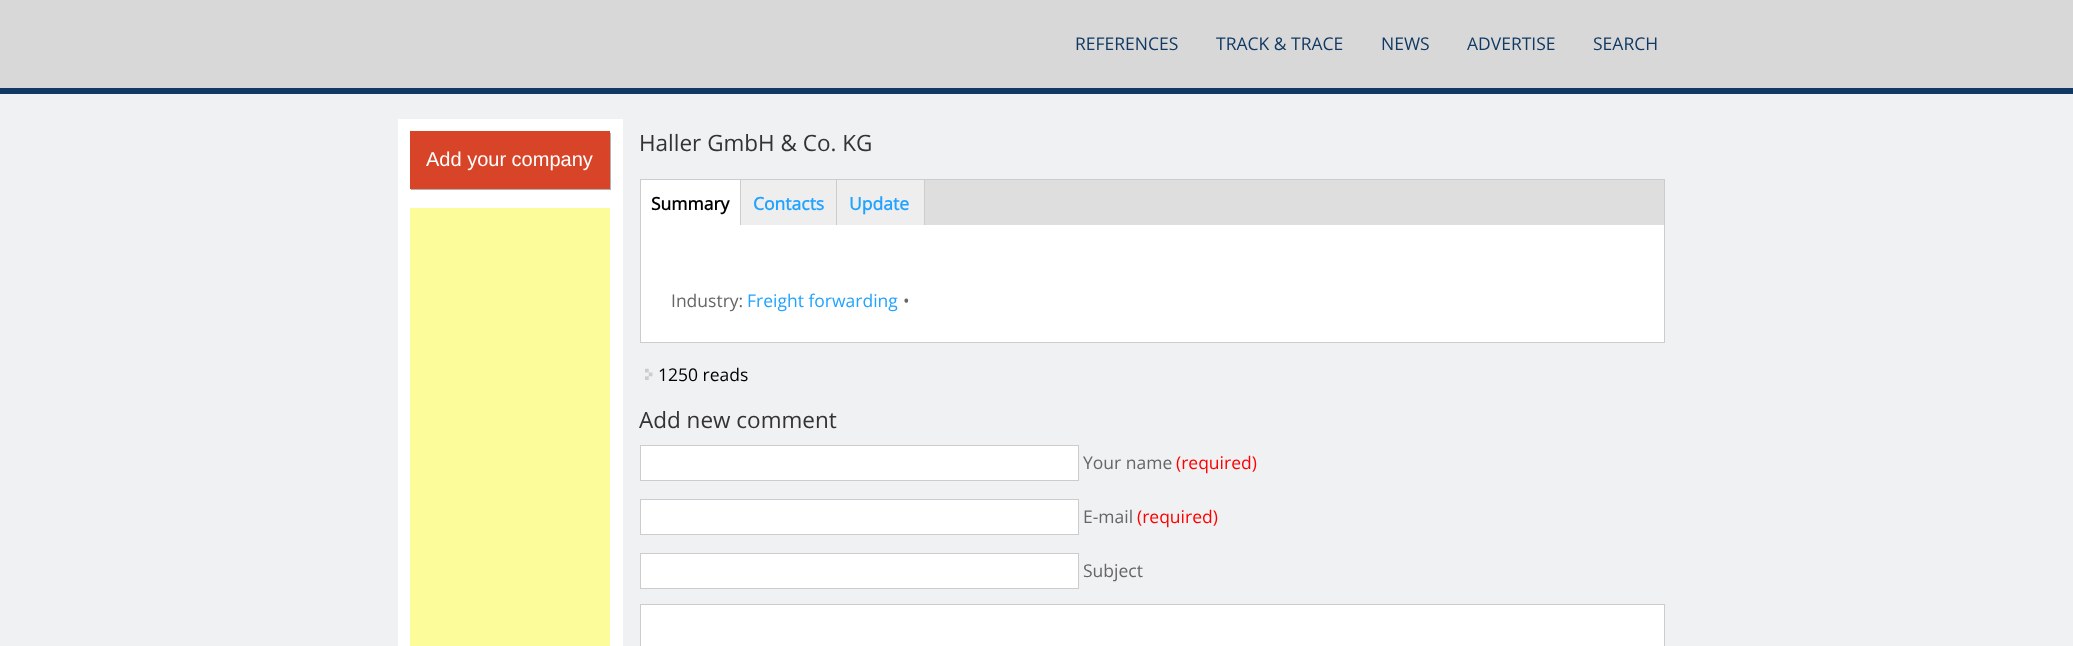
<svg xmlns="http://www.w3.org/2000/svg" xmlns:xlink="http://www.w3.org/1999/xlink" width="2073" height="646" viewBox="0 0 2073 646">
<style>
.cls-1{font:17.5px Open Sans;fill:#113963}
.cls-2{font:20px Liberation Sans;fill:#ffffff}
.cls-3{font:22.5px Open Sans;fill:#333333}
.cls-4{font:bold 17.5px Open Sans;fill:#000000}
.cls-5{font:bold 17.5px Open Sans;fill:#21a3ff}
.cls-6{font:17.5px Open Sans;fill:#666666}
.cls-7{font:17.5px Open Sans;fill:#21a3ff}
.cls-8{font:17.5px Open Sans;fill:#000000}
.cls-9{font:17.5px Open Sans;fill:#ff0000}
</style>
<rect width="100%" height="100%" fill="#f0f1f3"/>
<rect fill="#d8d8d8" x="0" y="0" width="2073" height="88"/>
<rect fill="#113963" x="0" y="88" width="2073" height="6"/>
<rect fill="#ffffff" x="398" y="119" width="225" height="527"/>
<rect fill="#000000" fill-opacity="0.3" filter="blur(0.5px)" x="411" y="133" width="200" height="57"/>
<rect fill="#d84427" x="410" y="131" width="200" height="58"/>
<rect fill="#fdfc9b" x="410" y="208" width="200" height="438"/>
<rect fill="#ffffff" x="641" y="225" width="1023" height="117"/>
<rect fill="none" stroke="#cccccc" x="640.5" y="179.5" width="1024" height="163"/>
<rect fill="#dedede" x="925" y="180" width="739" height="45"/>
<rect fill="#ffffff" x="641" y="180" width="99" height="45"/>
<rect fill="#cccccc" x="740" y="180" width="1" height="45"/>
<rect fill="#eeeeee" x="741" y="180" width="183" height="45"/>
<rect fill="#cccccc" x="836" y="180" width="1" height="45"/>
<rect fill="#cccccc" x="924" y="180" width="1" height="45"/>
<image xlink:href="image0.png" x="645" y="368" width="8" height="12"/>
<rect fill="#ffffff" stroke="#cccccc" x="640.5" y="445.5" width="438" height="35"/>
<rect fill="#ffffff" stroke="#cccccc" x="640.5" y="499.5" width="438" height="35"/>
<rect fill="#ffffff" stroke="#cccccc" x="640.5" y="553.5" width="438" height="35"/>
<rect fill="#ffffff" stroke="#cccccc" x="640.5" y="604.5" width="1024" height="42"/>
<text class="cls-1" x="1075" y="50">REFERENCES</text>
<text class="cls-1" x="1216" y="50">TRACK &amp; TRACE</text>
<text class="cls-1" x="1381" y="50">NEWS</text>
<text class="cls-1" x="1467" y="50">ADVERTISE</text>
<text class="cls-1" x="1593" y="50">SEARCH</text>
<text class="cls-2" x="426" y="166">Add your company</text>
<text class="cls-3" x="639" y="151">Haller GmbH &amp; Co. KG</text>
<text class="cls-4" x="651" y="210">Summary</text>
<text class="cls-5" x="753" y="210">Contacts</text>
<text class="cls-5" x="849" y="210">Update</text>
<text class="cls-6" x="671" y="307">Industry:</text>
<text class="cls-7" x="747" y="307">Freight forwarding</text>
<text class="cls-6" x="903" y="307">•</text>
<text class="cls-8" x="658" y="381">1250 reads</text>
<text class="cls-3" x="639" y="428">Add new comment</text>
<text class="cls-6" x="1083" y="469">Your name</text>
<text class="cls-9" x="1176" y="469">(required)</text>
<text class="cls-6" x="1083" y="523">E-mail</text>
<text class="cls-9" x="1137" y="523">(required)</text>
<text class="cls-6" x="1083" y="577">Subject</text>
</svg>
